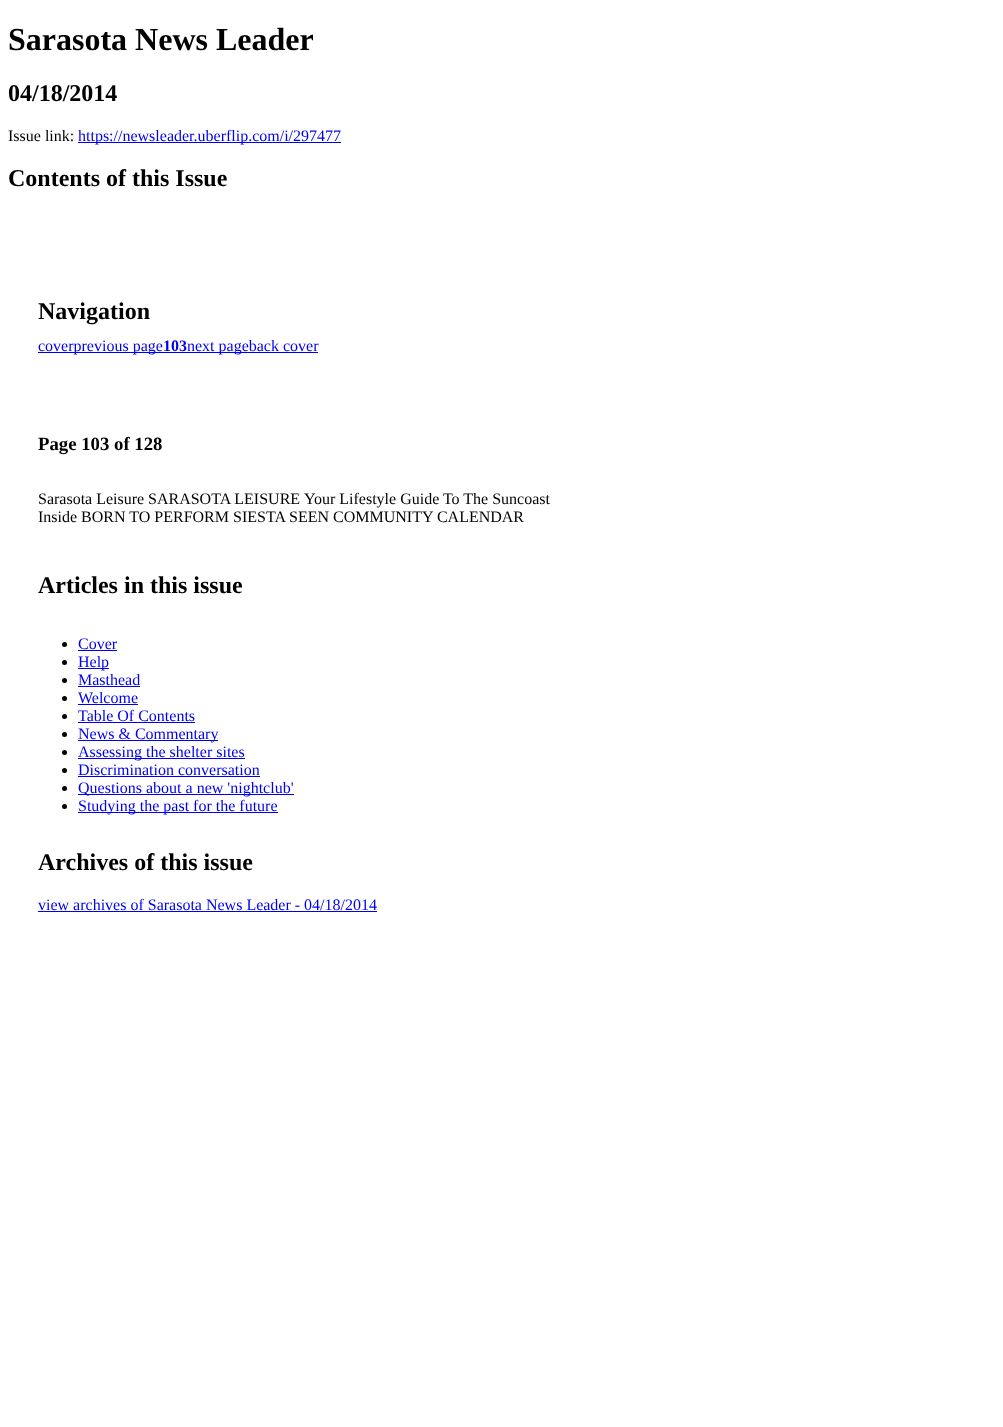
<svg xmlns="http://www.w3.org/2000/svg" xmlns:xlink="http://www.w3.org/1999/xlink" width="1003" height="1427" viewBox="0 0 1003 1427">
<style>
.cls-1{font:bold 32px Liberation Serif;fill:#000000}
.cls-2{font:bold 24px Liberation Serif;fill:#000000}
.cls-3{font:16px Liberation Serif;fill:#000000}
.cls-4{font:16px Liberation Serif;fill:#0000ee}
.cls-5{font:bold 16px Liberation Serif;fill:#0000ee}
.cls-6{font:bold 18.75px Liberation Serif;fill:#000000}
</style>
<rect width="100%" height="100%" fill="#ffffff"/>
<rect fill="#0000ee" x="78" y="142" width="263" height="1"/>
<rect fill="#0000ee" x="38" y="352" width="280" height="1"/>
<circle fill="#000000" cx="64.5" cy="644.5" r="2.5"/>
<rect fill="#0000ee" x="78" y="650" width="39" height="1"/>
<circle fill="#000000" cx="64.5" cy="662.5" r="2.5"/>
<rect fill="#0000ee" x="78" y="668" width="31" height="1"/>
<circle fill="#000000" cx="64.5" cy="680.5" r="2.5"/>
<rect fill="#0000ee" x="78" y="686" width="62" height="1"/>
<circle fill="#000000" cx="64.5" cy="698.5" r="2.5"/>
<rect fill="#0000ee" x="78" y="704" width="60" height="1"/>
<circle fill="#000000" cx="64.5" cy="716.5" r="2.5"/>
<rect fill="#0000ee" x="78" y="722" width="117" height="1"/>
<circle fill="#000000" cx="64.5" cy="734.5" r="2.5"/>
<rect fill="#0000ee" x="78" y="740" width="140" height="1"/>
<circle fill="#000000" cx="64.5" cy="752.5" r="2.5"/>
<rect fill="#0000ee" x="78" y="758" width="167" height="1"/>
<circle fill="#000000" cx="64.5" cy="770.5" r="2.5"/>
<rect fill="#0000ee" x="78" y="776" width="182" height="1"/>
<circle fill="#000000" cx="64.5" cy="788.5" r="2.5"/>
<rect fill="#0000ee" x="78" y="794" width="216" height="1"/>
<circle fill="#000000" cx="64.5" cy="806.5" r="2.5"/>
<rect fill="#0000ee" x="78" y="812" width="200" height="1"/>
<rect fill="#0000ee" x="38" y="911" width="339" height="1"/>
<text class="cls-1" x="8" y="50">Sarasota News Leader</text>
<text class="cls-2" x="8" y="101">04/18/2014</text>
<text class="cls-3" x="8" y="141">Issue link:</text>
<text class="cls-4" x="78" y="141">https://newsleader.uberflip.com/i/297477</text>
<text class="cls-2" x="8" y="186">Contents of this Issue</text>
<text class="cls-2" x="38" y="319">Navigation</text>
<text class="cls-4" x="38" y="351">coverprevious page</text>
<text class="cls-5" x="163" y="351">103</text>
<text class="cls-4" x="187" y="351">next pageback cover</text>
<text class="cls-6" x="38" y="450">Page 103 of 128</text>
<text class="cls-3" x="38" y="504">Sarasota Leisure</text>
<text class="cls-3" x="148" y="504">SARASOTA LEISURE</text>
<text class="cls-3" x="304" y="504">Your Lifestyle Guide To The Suncoast</text>
<text class="cls-3" x="38" y="522">Inside BORN TO PERFORM SIESTA SEEN COMMUNITY CALENDAR</text>
<text class="cls-2" x="38" y="593">Articles in this issue</text>
<text class="cls-4"><tspan x="78" y="649">Cover</tspan><tspan x="78" y="667">Help</tspan><tspan x="78" y="685">Masthead</tspan><tspan x="78" y="703">Welcome</tspan><tspan x="78" y="721">Table Of Contents</tspan><tspan x="78" y="739">News &amp; Commentary</tspan><tspan x="78" y="757">Assessing the shelter sites</tspan><tspan x="78" y="775">Discrimination conversation</tspan><tspan x="78" y="793">Questions about a new 'nightclub'</tspan><tspan x="78" y="811">Studying the past for the future</tspan></text>
<text class="cls-2" x="38" y="870">Archives of this issue</text>
<text class="cls-4" x="38" y="910">view archives of Sarasota News Leader - 04/18/2014</text>
</svg>
